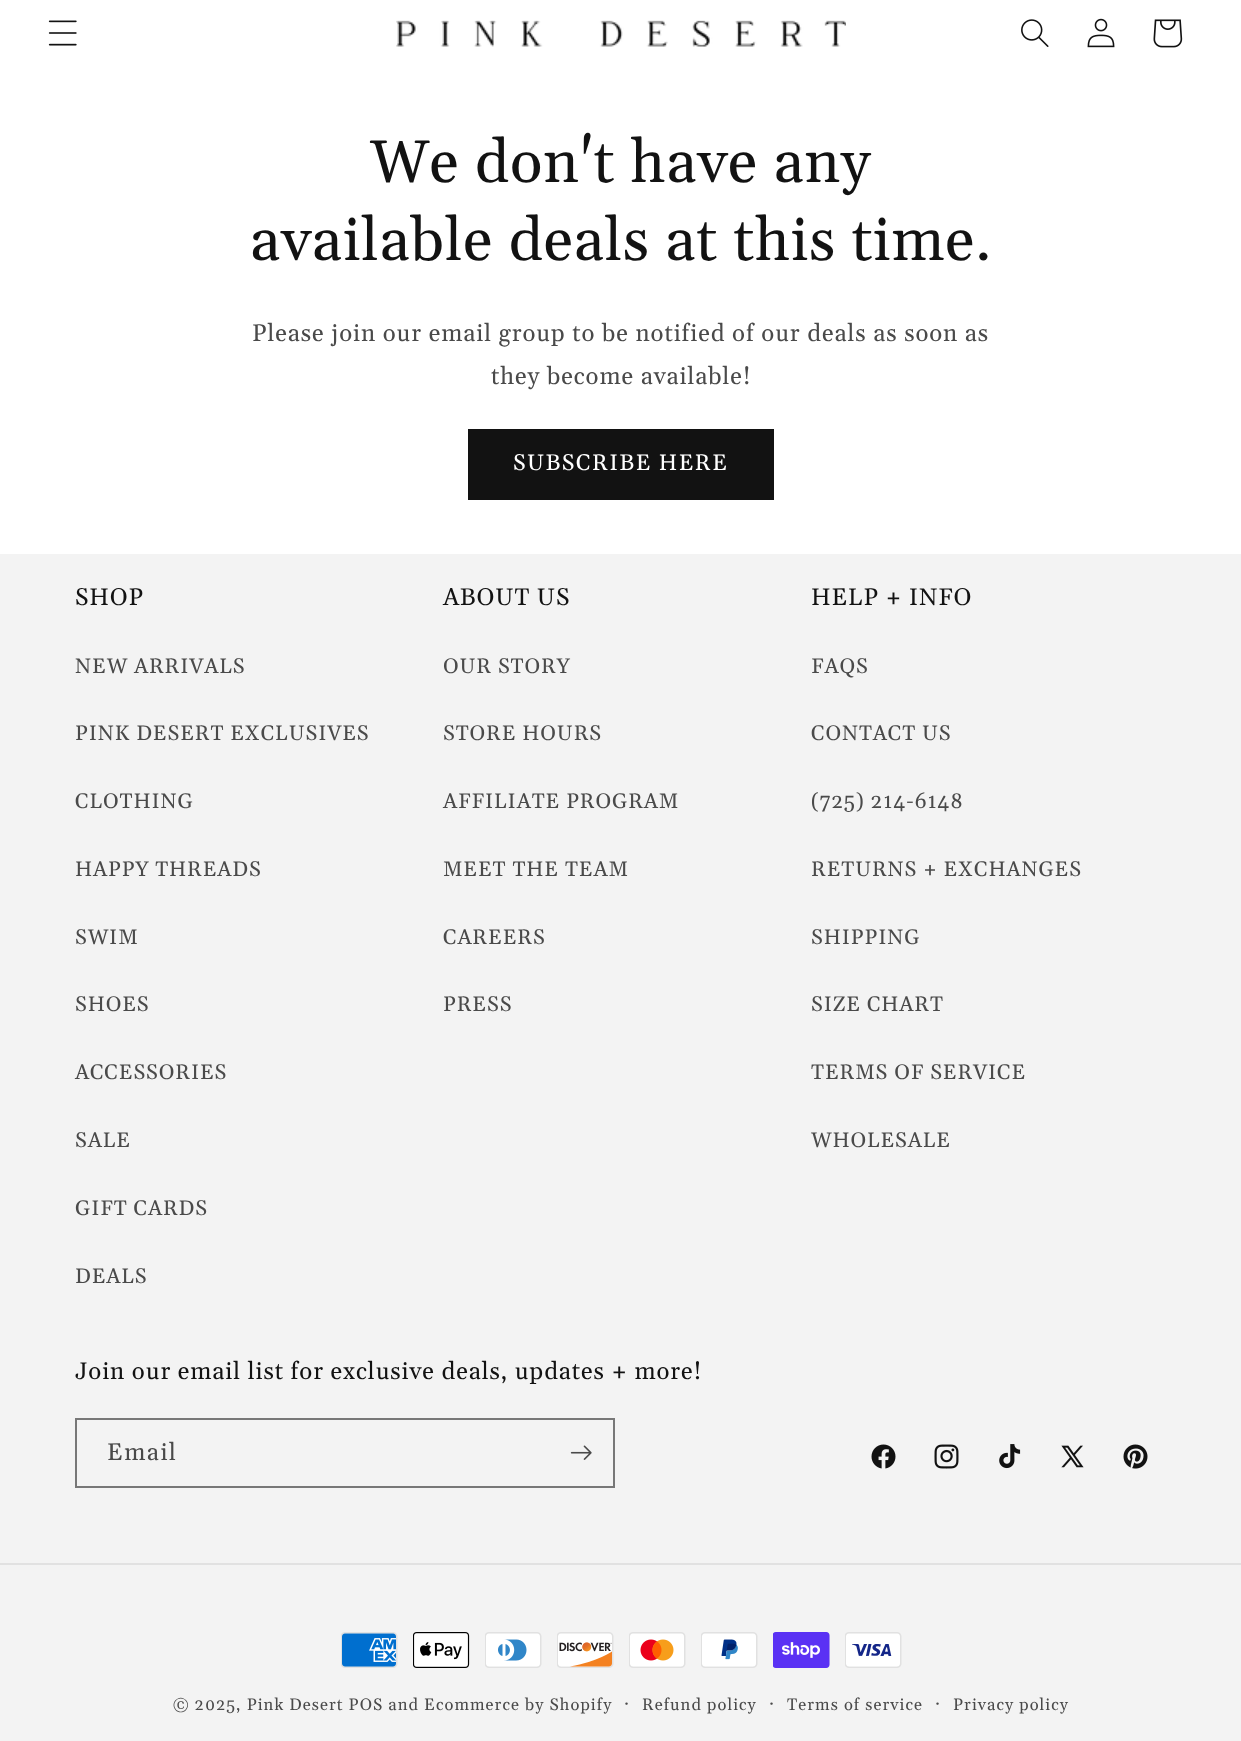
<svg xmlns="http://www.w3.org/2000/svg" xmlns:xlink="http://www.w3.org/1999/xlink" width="1241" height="1741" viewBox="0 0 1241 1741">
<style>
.cls-1{font:60px Gelasio;letter-spacing:0.9px;fill:#121212}
.cls-2{font:24px Gelasio;letter-spacing:0.9px;fill:#4a4a4a}
.cls-3{font:22.5px Gelasio;letter-spacing:1.5px;fill:#ffffff}
.cls-4{font:24px Gelasio;letter-spacing:0.9px;fill:#121212}
.cls-5{font:21px Gelasio;letter-spacing:0.9px;fill:#4a4a4a}
.cls-6{font:24px Gelasio;letter-spacing:1.5px;fill:#4a4a4a}
.cls-7{font:16.5px Gelasio;letter-spacing:1.05px;fill:#4a4a4a}
.cls-8{font:18px Gelasio;letter-spacing:1.05px;fill:#4a4a4a}
</style>
<rect width="100%" height="100%" fill="#ffffff"/>
<image xlink:href="image0.png" x="48" y="20" width="29" height="26"/>
<image xlink:href="image1.png" x="396" y="20" width="450" height="27"/>
<image xlink:href="image2.png" x="1021" y="19" width="28" height="28"/>
<image xlink:href="image3.png" x="1087" y="18" width="28" height="30"/>
<image xlink:href="image4.png" x="1153" y="19" width="30" height="29"/>
<rect fill="#121212" x="468" y="429" width="306" height="71"/>
<rect fill="#f3f3f3" x="0" y="554" width="1241" height="1187"/>
<rect fill="none" stroke="#777777" stroke-width="2" x="76" y="1419" width="538" height="68"/>
<image xlink:href="image5.png" x="570" y="1445" width="22" height="15"/>
<image xlink:href="image6.png" x="871" y="1444" width="25" height="25"/>
<image xlink:href="image7.png" x="934" y="1444" width="25" height="25"/>
<image xlink:href="image8.png" x="999" y="1444" width="22" height="25"/>
<image xlink:href="image9.png" x="1061" y="1445" width="23" height="23"/>
<image xlink:href="image10.png" x="1123" y="1444" width="25" height="25"/>
<rect fill="#e1e1e1" x="0" y="1563" width="1241" height="2"/>
<image xlink:href="image11.png" x="341" y="1632" width="57" height="36"/>
<image xlink:href="image12.png" x="413" y="1632" width="57" height="36"/>
<image xlink:href="image13.png" x="485" y="1632" width="57" height="36"/>
<image xlink:href="image14.png" x="557" y="1632" width="57" height="36"/>
<image xlink:href="image15.png" x="629" y="1632" width="57" height="36"/>
<image xlink:href="image16.png" x="701" y="1632" width="57" height="36"/>
<image xlink:href="image17.png" x="773" y="1632" width="57" height="36"/>
<image xlink:href="image18.png" x="845" y="1632" width="57" height="36"/>
<text class="cls-1" x="370" y="182">We don't have any</text>
<text class="cls-1" x="250" y="260">available deals at this time.</text>
<text class="cls-2" x="252" y="341">Please join our email group to be notified of our deals as soon as</text>
<text class="cls-2" x="491" y="384">they become available!</text>
<text class="cls-3" x="513" y="470">SUBSCRIBE HERE</text>
<text class="cls-4" x="75" y="605">SHOP</text>
<text class="cls-5" x="75" y="673">NEW ARRIVALS</text>
<text class="cls-5" x="75" y="740">PINK DESERT EXCLUSIVES</text>
<text class="cls-5" x="75" y="808">CLOTHING</text>
<text class="cls-5" x="75" y="876">HAPPY THREADS</text>
<text class="cls-5" x="75" y="944">SWIM</text>
<text class="cls-5" x="75" y="1011">SHOES</text>
<text class="cls-5" x="75" y="1079">ACCESSORIES</text>
<text class="cls-5" x="75" y="1147">SALE</text>
<text class="cls-5" x="75" y="1215">GIFT CARDS</text>
<text class="cls-5" x="75" y="1283">DEALS</text>
<text class="cls-4" x="443" y="605">ABOUT US</text>
<text class="cls-5" x="443" y="673">OUR STORY</text>
<text class="cls-5" x="443" y="740">STORE HOURS</text>
<text class="cls-5" x="443" y="808">AFFILIATE PROGRAM</text>
<text class="cls-5" x="443" y="876">MEET THE TEAM</text>
<text class="cls-5" x="443" y="944">CAREERS</text>
<text class="cls-5" x="443" y="1011">PRESS</text>
<text class="cls-4" x="811" y="605">HELP + INFO</text>
<text class="cls-5" x="811" y="673">FAQS</text>
<text class="cls-5" x="811" y="740">CONTACT US</text>
<text class="cls-5" x="811" y="808">(725) 214-6148</text>
<text class="cls-5" x="811" y="876">RETURNS + EXCHANGES</text>
<text class="cls-5" x="811" y="944">SHIPPING</text>
<text class="cls-5" x="811" y="1011">SIZE CHART</text>
<text class="cls-5" x="811" y="1079">TERMS OF SERVICE</text>
<text class="cls-5" x="811" y="1147">WHOLESALE</text>
<text class="cls-4" x="75" y="1379">Join our email list for exclusive deals, updates + more!</text>
<text class="cls-6" x="107" y="1460">Email</text>
<text class="cls-7" x="173" y="1710">© 2025, Pink Desert POS and Ecommerce by Shopify</text>
<text class="cls-8" x="624" y="1710">·</text>
<text class="cls-7" x="642" y="1710">Refund policy</text>
<text class="cls-8" x="769" y="1710">·</text>
<text class="cls-7" x="787" y="1710">Terms of service</text>
<text class="cls-8" x="935" y="1710">·</text>
<text class="cls-7" x="953" y="1710">Privacy policy</text>
</svg>
